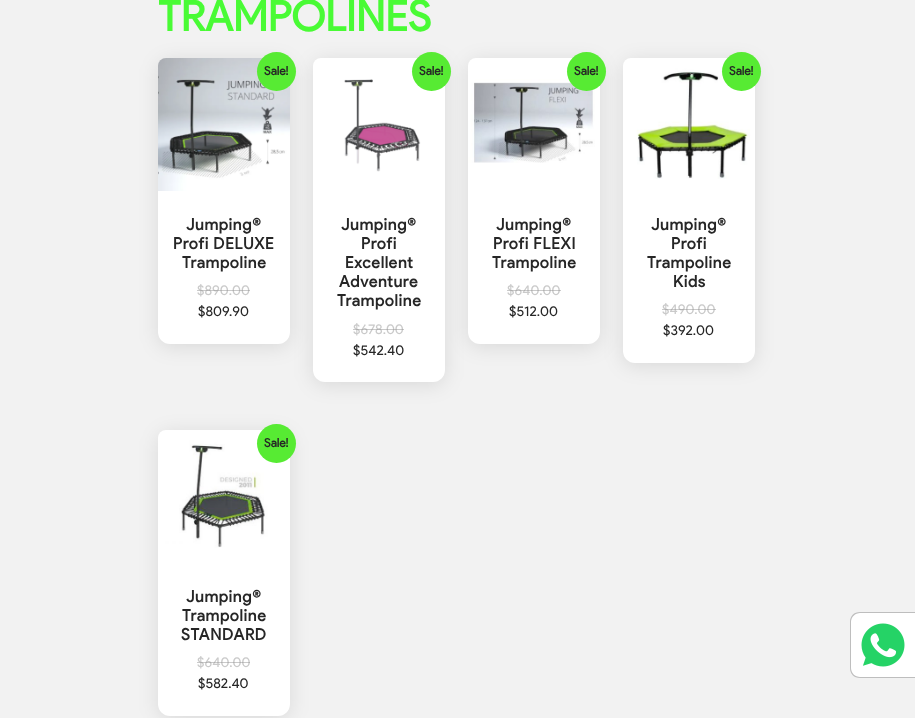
<svg xmlns="http://www.w3.org/2000/svg" xmlns:xlink="http://www.w3.org/1999/xlink" width="915" height="718" viewBox="0 0 915 718">
<style>
.cls-1{font:bold 42px Product Sans;fill:#49fb35}
.cls-2{font:bold 12px Product Sans;fill:#262626}
.cls-3{font:bold 16px Product Sans;letter-spacing:0.75px;fill:#262626}
.cls-4{font:14px Product Sans;fill:#cacaca}
.cls-5{font:14px Product Sans;fill:#262626}
</style>
<rect width="100%" height="100%" fill="#f2f2f2"/>
<rect fill="#000000" fill-opacity="0.1" filter="blur(10px)" x="158" y="61" width="132" height="286" rx="12"/>
<rect fill="#ffffff" x="158" y="58" width="132" height="286" rx="12"/>
<image xlink:href="image0.png" x="158" y="58" width="132" height="133"/>
<rect fill="#000000" fill-opacity="0.1" filter="blur(10px)" x="313" y="61" width="132" height="324" rx="12"/>
<circle fill="#57eb33" cx="276.5" cy="71.5" r="19.5"/>
<rect fill="#ffffff" x="313" y="58" width="132" height="324" rx="12"/>
<image xlink:href="image1.png" x="313" y="58" width="132" height="114"/>
<rect fill="#000000" fill-opacity="0.1" filter="blur(10px)" x="468" y="61" width="132" height="286" rx="12"/>
<circle fill="#57eb33" cx="431.5" cy="71.5" r="19.5"/>
<rect fill="#ffffff" x="468" y="58" width="132" height="286" rx="12"/>
<image xlink:href="image2.png" x="468" y="58" width="132" height="105"/>
<rect fill="#000000" fill-opacity="0.1" filter="blur(10px)" x="623" y="61" width="132" height="305" rx="12"/>
<circle fill="#57eb33" cx="586.5" cy="71.5" r="19.5"/>
<rect fill="#ffffff" x="623" y="58" width="132" height="305" rx="12"/>
<image xlink:href="image3.png" x="623" y="58" width="132" height="121"/>
<circle fill="#57eb33" cx="741.5" cy="71.5" r="19.5"/>
<rect fill="#000000" fill-opacity="0.1" filter="blur(10px)" x="158" y="433" width="132" height="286" rx="12"/>
<rect fill="#ffffff" x="158" y="430" width="132" height="286" rx="12"/>
<image xlink:href="image4.png" x="158" y="430" width="132" height="118"/>
<circle fill="#57eb33" cx="276.5" cy="443.5" r="19.5"/>
<path fill="#ffffff" d="M860 613H915V677H860C855 677 851 673 851 668V622C851 617 855 613 860 613Z"/>
<path fill="#bebebe" fill-rule="evenodd" d="M860 612H915V678H860C854 678 850 674 850 668V622C850 616 854 612 860 612ZM860 613H915V677H860C855 677 851 673 851 668V622C851 617 855 613 860 613Z"/>
<image xlink:href="image5.png" x="861" y="623" width="44" height="44"/>
<text class="cls-1" x="158" y="31">TRAMPOLINES</text>
<text class="cls-2" x="264" y="75">Sale!</text>
<text class="cls-3" x="186" y="230">Jumping®</text>
<text class="cls-3" x="173" y="249">Profi DELUXE</text>
<text class="cls-3" x="182" y="268">Trampoline</text>
<text class="cls-4" x="197" y="295">$890.00</text>
<rect fill="#939393" fill-opacity="0.49" x="197" y="290" width="8" height="1"/>
<rect fill="#939393" fill-opacity="0.49" x="205" y="290" width="45" height="1"/>
<text class="cls-5" x="198" y="316">$809.90</text>
<text class="cls-2" x="419" y="75">Sale!</text>
<text class="cls-3" x="341" y="230">Jumping®</text>
<text class="cls-3" x="361" y="249">Profi</text>
<text class="cls-3" x="345" y="268">Excellent</text>
<text class="cls-3" x="339" y="287">Adventure</text>
<text class="cls-3" x="337" y="306">Trampoline</text>
<text class="cls-4" x="353" y="334">$678.00</text>
<rect fill="#939393" fill-opacity="0.49" x="353" y="329" width="8" height="1"/>
<rect fill="#939393" fill-opacity="0.49" x="361" y="329" width="43" height="1"/>
<text class="cls-5" x="353" y="355">$542.40</text>
<text class="cls-2" x="574" y="75">Sale!</text>
<text class="cls-3" x="496" y="230">Jumping®</text>
<text class="cls-3" x="493" y="249">Profi FLEXI</text>
<text class="cls-3" x="492" y="268">Trampoline</text>
<text class="cls-4" x="507" y="295">$640.00</text>
<rect fill="#939393" fill-opacity="0.49" x="507" y="290" width="8" height="1"/>
<rect fill="#939393" fill-opacity="0.49" x="515" y="290" width="46" height="1"/>
<text class="cls-5" x="509" y="316">$512.00</text>
<text class="cls-2" x="729" y="75">Sale!</text>
<text class="cls-3" x="651" y="230">Jumping®</text>
<text class="cls-3" x="671" y="249">Profi</text>
<text class="cls-3" x="647" y="268">Trampoline</text>
<text class="cls-3" x="673" y="287">Kids</text>
<text class="cls-4" x="662" y="314">$490.00</text>
<rect fill="#939393" fill-opacity="0.49" x="662" y="309" width="8" height="1"/>
<rect fill="#939393" fill-opacity="0.49" x="670" y="309" width="46" height="1"/>
<text class="cls-5" x="663" y="335">$392.00</text>
<text class="cls-2" x="264" y="447">Sale!</text>
<text class="cls-3" x="186" y="602">Jumping®</text>
<text class="cls-3" x="182" y="621">Trampoline</text>
<text class="cls-3" x="181" y="640">STANDARD</text>
<text class="cls-4" x="197" y="667">$640.00</text>
<rect fill="#939393" fill-opacity="0.49" x="197" y="662" width="7" height="1"/>
<rect fill="#939393" fill-opacity="0.49" x="204" y="662" width="46" height="1"/>
<text class="cls-5" x="198" y="688">$582.40</text>
</svg>
